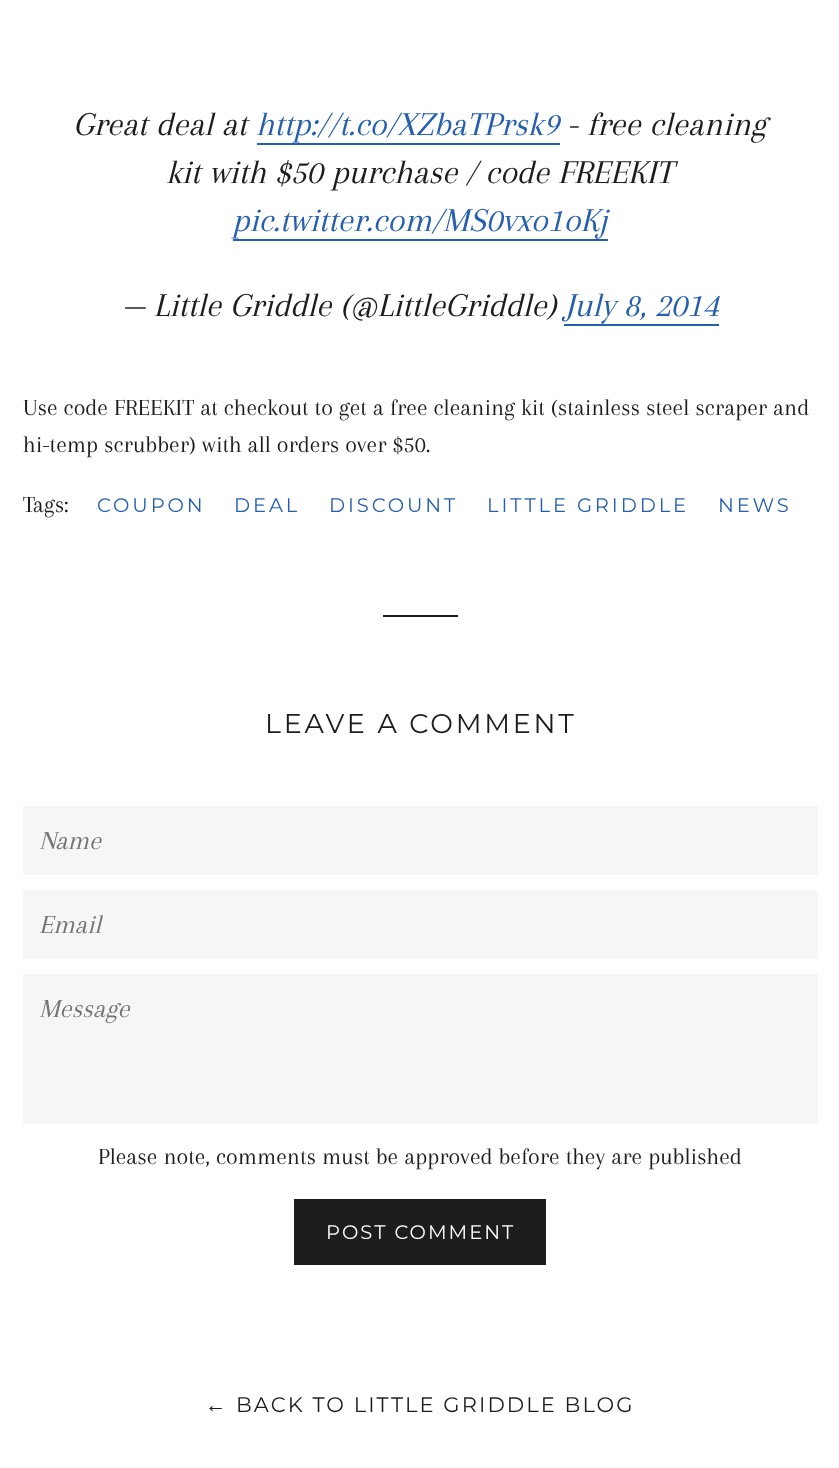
<svg xmlns="http://www.w3.org/2000/svg" xmlns:xlink="http://www.w3.org/1999/xlink" width="839" height="1468" viewBox="0 0 839 1468">
<style>
.cls-1{font:italic 34.5px Arapey;fill:#1c1d1d}
.cls-2{font:italic 34.5px Arapey;fill:#265faf}
.cls-3{font:24px Arapey;fill:#1c1d1d}
.cls-4{font:100 19.5px Montserrat;letter-spacing:2.9px;fill:#265faf}
.cls-5{font:100 27px Montserrat;letter-spacing:2.75px;fill:#1c1d1d}
.cls-6{font:italic 27px Arapey;fill:#737474}
.cls-7{font:100 19.5px Montserrat;letter-spacing:2px;fill:#ffffff}
.cls-8{font:21px Liberation Sans;letter-spacing:2.1px;fill:#1c1d1d}
.cls-9{font:100 21px Montserrat;letter-spacing:2.1px;fill:#1c1d1d}
</style>
<rect width="100%" height="100%" fill="#ffffff"/>
<rect fill="#265faf" x="257" y="143" width="303" height="2"/>
<rect fill="#265faf" x="233" y="239" width="375" height="2"/>
<rect fill="#265faf" x="564" y="324" width="155" height="2"/>
<rect fill="#1c1d1d" x="383" y="615" width="75" height="2"/>
<rect fill="#f6f6f6" x="23" y="806" width="795" height="69"/>
<rect fill="#f6f6f6" x="23" y="890" width="795" height="69"/>
<rect fill="#f6f6f6" x="23" y="974" width="795" height="150"/>
<rect fill="#1c1d1d" x="294" y="1199" width="252" height="66"/>
<text class="cls-1" x="73" y="135">Great deal at</text>
<text class="cls-2" x="256" y="135">http://t.co/XZbaTPrsk9</text>
<text class="cls-1" x="567" y="135">- free cleaning</text>
<text class="cls-1" x="166" y="183">kit with $50 purchase / code FREEKIT</text>
<text class="cls-2" x="232" y="231">pic.twitter.com/MS0vxo1oKj</text>
<text class="cls-1" x="122" y="316">— Little Griddle (@LittleGriddle)</text>
<text class="cls-2" x="565" y="316">July 8, 2014</text>
<text class="cls-3"><tspan x="23" y="415">Use code FREEKIT at checkout to get a free cleaning kit (stainless steel scraper and</tspan><tspan x="23" y="452">hi-temp scrubber) with all orders over $50.</tspan></text>
<text class="cls-3" x="23" y="512">Tags:</text>
<text class="cls-4" x="97" y="512">COUPON</text>
<text class="cls-4" x="234" y="512">DEAL</text>
<text class="cls-4" x="329" y="512">DISCOUNT</text>
<text class="cls-4" x="487" y="512">LITTLE GRIDDLE</text>
<text class="cls-4" x="718" y="512">NEWS</text>
<text class="cls-5" x="265" y="733">LEAVE A COMMENT</text>
<text class="cls-6" x="39" y="849">Name</text>
<text class="cls-6" x="39" y="933">Email</text>
<text class="cls-6" x="39" y="1017">Message</text>
<text class="cls-3" x="98" y="1164">Please note, comments must be approved before they are published</text>
<text class="cls-7" x="326" y="1239">POST COMMENT</text>
<text class="cls-8" x="205" y="1412">←</text>
<text class="cls-9" x="236" y="1412">BACK TO LITTLE GRIDDLE BLOG</text>
</svg>
